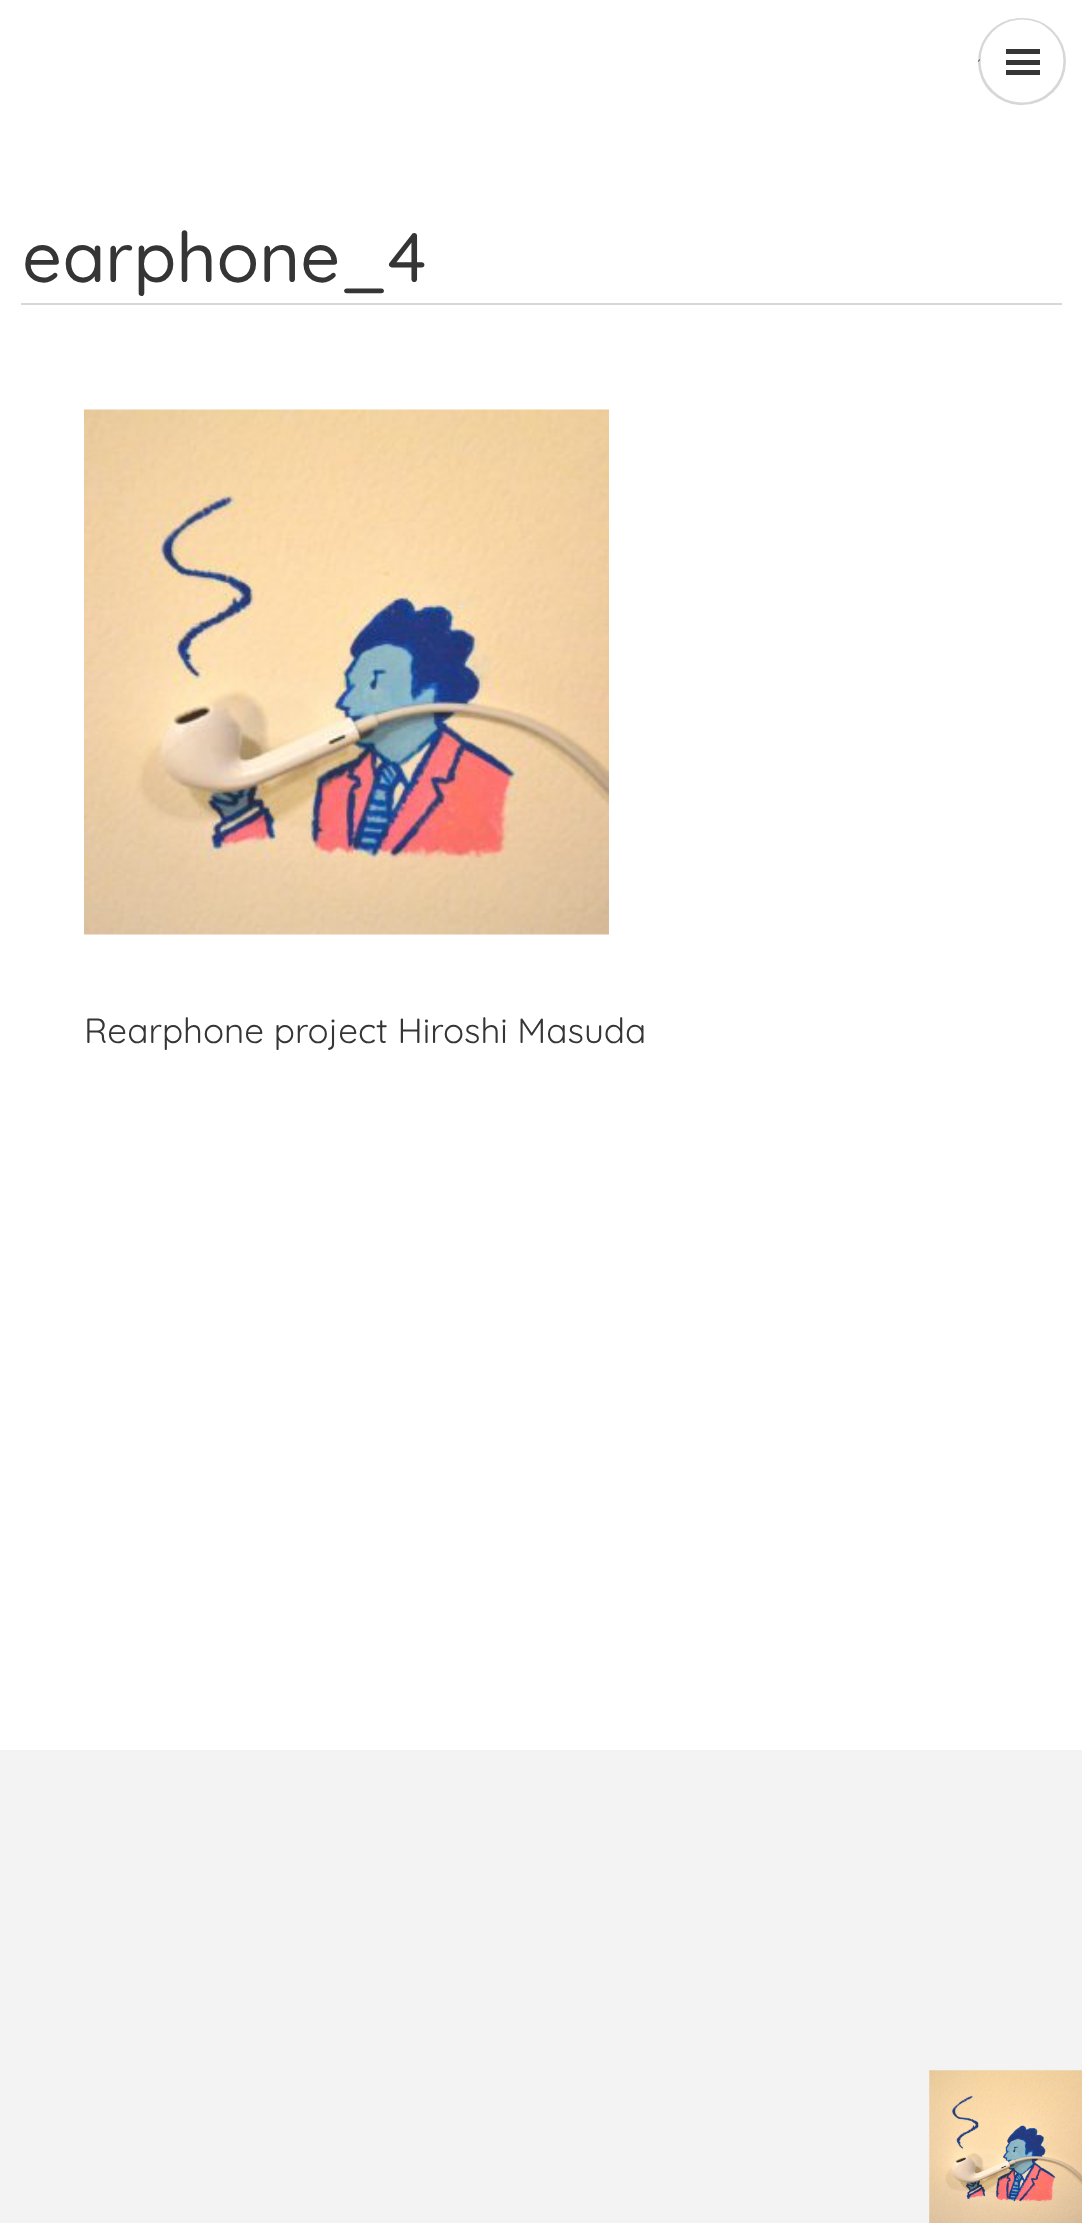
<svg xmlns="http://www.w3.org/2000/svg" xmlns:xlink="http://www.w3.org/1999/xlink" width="1082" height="2223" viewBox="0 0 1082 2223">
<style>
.cls-1{font:500 70px Quicksand;fill:#353535}
.cls-2{font:35px Quicksand;fill:#353535}
</style>
<defs>
<clipPath id="clip1"><rect x="978" y="18" width="88" height="87" rx="43.5"/></clipPath>
<clipPath id="clip2"><path d="M978 105V17.5H1066V105Z"/></clipPath>
</defs>
<rect width="100%" height="100%" fill="#f3f3f3"/>
<rect fill="#ffffff" x="0" y="0" width="1082" height="1750"/>
<g clip-path="url(#clip1)">
<circle fill="none" stroke="#d7d7d7" stroke-width="5.2" cx="1022" cy="61" r="44"/>
</g>
<g clip-path="url(#clip2)">
<path fill="none" stroke="#353535" stroke-width="5.2" d="M978.5 61.5L978 61"/>
</g>
<rect fill="#353535" x="1006" y="49" width="34" height="5"/>
<rect fill="#353535" x="1006" y="60" width="34" height="5"/>
<rect fill="#353535" x="1006" y="70" width="34" height="5"/>
<rect fill="#d7d7d7" x="21" y="303" width="1041" height="2"/>
<image xlink:href="image0.png" x="84" y="409" width="525" height="526"/>
<image xlink:href="image1.png" x="929" y="2070" width="153" height="153"/>
<text class="cls-1" x="22" y="282">earphone_4</text>
<text class="cls-2" x="84" y="1043">Rearphone project Hiroshi Masuda</text>
</svg>
